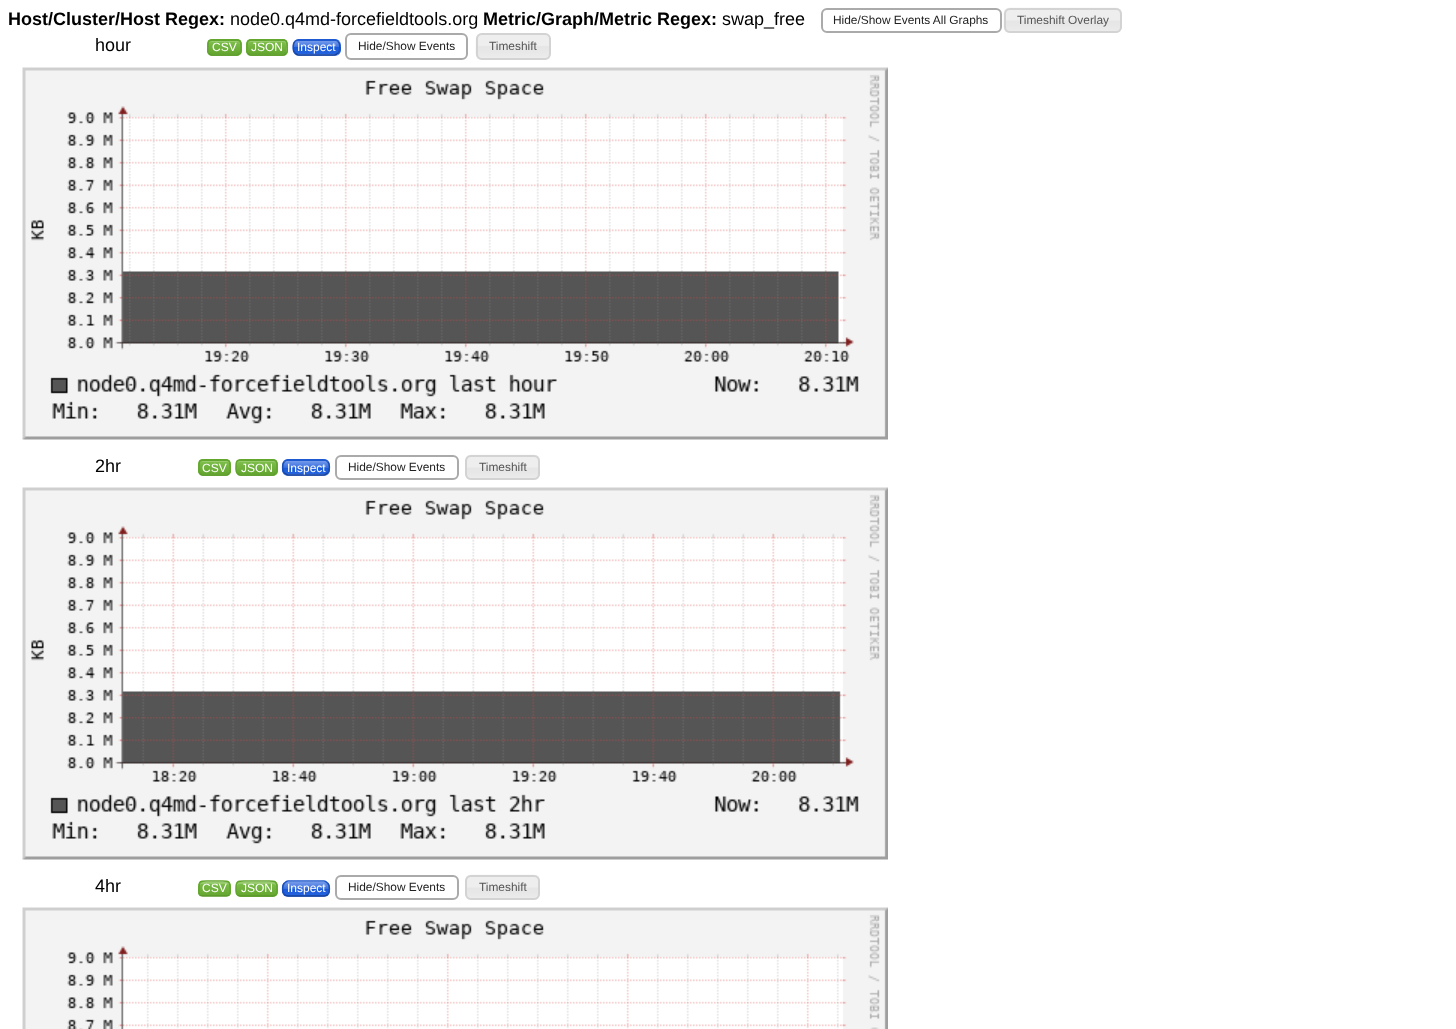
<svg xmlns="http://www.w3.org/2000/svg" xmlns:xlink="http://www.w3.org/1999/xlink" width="1456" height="1029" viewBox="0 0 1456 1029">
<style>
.cls-1{font:bold 18px Liberation Sans;fill:#000000}
.cls-2{font:18px Liberation Sans;fill:#000000}
.cls-3{font:11.9px Liberation Sans;fill:#212121}
.cls-4{font:11.9px Liberation Sans;fill:#555555}
.cls-5{font:12px Liberation Sans;fill:#ffffff}
</style>
<defs>
<clipPath id="clip1"><rect x="207" y="39" width="35" height="17" rx="5"/></clipPath>
<linearGradient id="g1" gradientUnits="userSpaceOnUse" x1="224" y1="27" x2="224" y2="41"><stop offset="0" stop-color="#7fbf4d"/><stop offset="1" stop-color="#63a62f"/></linearGradient>
<linearGradient id="g2" gradientUnits="userSpaceOnUse" x1="224" y1="41" x2="224" y2="54"><stop offset="0" stop-color="#7fbf4d"/><stop offset="1" stop-color="#63a62f"/></linearGradient>
<linearGradient id="g3" gradientUnits="userSpaceOnUse" x1="224" y1="54" x2="224" y2="68"><stop offset="0" stop-color="#7fbf4d"/><stop offset="1" stop-color="#63a62f"/></linearGradient>
<clipPath id="clip2"><rect x="246" y="39" width="42" height="17" rx="5"/></clipPath>
<linearGradient id="g4" gradientUnits="userSpaceOnUse" x1="267" y1="27" x2="267" y2="41"><stop offset="0" stop-color="#7fbf4d"/><stop offset="1" stop-color="#63a62f"/></linearGradient>
<linearGradient id="g5" gradientUnits="userSpaceOnUse" x1="267" y1="41" x2="267" y2="54"><stop offset="0" stop-color="#7fbf4d"/><stop offset="1" stop-color="#63a62f"/></linearGradient>
<linearGradient id="g6" gradientUnits="userSpaceOnUse" x1="267" y1="54" x2="267" y2="68"><stop offset="0" stop-color="#7fbf4d"/><stop offset="1" stop-color="#63a62f"/></linearGradient>
<clipPath id="clip3"><rect x="293" y="39" width="48" height="17" rx="6"/></clipPath>
<linearGradient id="g7" gradientUnits="userSpaceOnUse" x1="317" y1="27" x2="317" y2="41"><stop offset="0" stop-color="#759ae9"/><stop offset="0.5" stop-color="#376fe0"/><stop offset="0.5" stop-color="#1a5ad9"/><stop offset="1" stop-color="#2463de"/></linearGradient>
<linearGradient id="g8" gradientUnits="userSpaceOnUse" x1="317" y1="41" x2="317" y2="54"><stop offset="0" stop-color="#759ae9"/><stop offset="0.5" stop-color="#376fe0"/><stop offset="0.5" stop-color="#1a5ad9"/><stop offset="1" stop-color="#2463de"/></linearGradient>
<linearGradient id="g9" gradientUnits="userSpaceOnUse" x1="317" y1="54" x2="317" y2="68"><stop offset="0" stop-color="#759ae9"/><stop offset="0.5" stop-color="#376fe0"/><stop offset="0.5" stop-color="#1a5ad9"/><stop offset="1" stop-color="#2463de"/></linearGradient>
<clipPath id="clip4"><rect x="198" y="459" width="33" height="17" rx="5"/></clipPath>
<linearGradient id="g10" gradientUnits="userSpaceOnUse" x1="215" y1="447" x2="215" y2="461"><stop offset="0" stop-color="#7fbf4d"/><stop offset="1" stop-color="#63a62f"/></linearGradient>
<linearGradient id="g11" gradientUnits="userSpaceOnUse" x1="215" y1="461" x2="215" y2="474"><stop offset="0" stop-color="#7fbf4d"/><stop offset="1" stop-color="#63a62f"/></linearGradient>
<linearGradient id="g12" gradientUnits="userSpaceOnUse" x1="215" y1="474" x2="215" y2="488"><stop offset="0" stop-color="#7fbf4d"/><stop offset="1" stop-color="#63a62f"/></linearGradient>
<clipPath id="clip5"><rect x="236" y="459" width="42" height="17" rx="5"/></clipPath>
<linearGradient id="g13" gradientUnits="userSpaceOnUse" x1="257" y1="447" x2="257" y2="461"><stop offset="0" stop-color="#7fbf4d"/><stop offset="1" stop-color="#63a62f"/></linearGradient>
<linearGradient id="g14" gradientUnits="userSpaceOnUse" x1="257" y1="461" x2="257" y2="474"><stop offset="0" stop-color="#7fbf4d"/><stop offset="1" stop-color="#63a62f"/></linearGradient>
<linearGradient id="g15" gradientUnits="userSpaceOnUse" x1="257" y1="474" x2="257" y2="488"><stop offset="0" stop-color="#7fbf4d"/><stop offset="1" stop-color="#63a62f"/></linearGradient>
<clipPath id="clip6"><rect x="282" y="459" width="48" height="17" rx="6"/></clipPath>
<linearGradient id="g16" gradientUnits="userSpaceOnUse" x1="306" y1="447" x2="306" y2="461"><stop offset="0" stop-color="#759ae9"/><stop offset="0.5" stop-color="#376fe0"/><stop offset="0.5" stop-color="#1a5ad9"/><stop offset="1" stop-color="#2463de"/></linearGradient>
<linearGradient id="g17" gradientUnits="userSpaceOnUse" x1="306" y1="461" x2="306" y2="474"><stop offset="0" stop-color="#759ae9"/><stop offset="0.5" stop-color="#376fe0"/><stop offset="0.5" stop-color="#1a5ad9"/><stop offset="1" stop-color="#2463de"/></linearGradient>
<linearGradient id="g18" gradientUnits="userSpaceOnUse" x1="306" y1="474" x2="306" y2="488"><stop offset="0" stop-color="#759ae9"/><stop offset="0.5" stop-color="#376fe0"/><stop offset="0.5" stop-color="#1a5ad9"/><stop offset="1" stop-color="#2463de"/></linearGradient>
<clipPath id="clip7"><rect x="198" y="881" width="33" height="16" rx="5"/></clipPath>
<linearGradient id="g19" gradientUnits="userSpaceOnUse" x1="215" y1="882" x2="215" y2="896"><stop offset="0" stop-color="#7fbf4d"/><stop offset="1" stop-color="#63a62f"/></linearGradient>
<clipPath id="clip8"><rect x="236" y="881" width="42" height="16" rx="5"/></clipPath>
<linearGradient id="g20" gradientUnits="userSpaceOnUse" x1="257" y1="882" x2="257" y2="896"><stop offset="0" stop-color="#7fbf4d"/><stop offset="1" stop-color="#63a62f"/></linearGradient>
<linearGradient id="g21" gradientUnits="userSpaceOnUse" x1="257" y1="896" x2="257" y2="909"><stop offset="0" stop-color="#7fbf4d"/><stop offset="1" stop-color="#63a62f"/></linearGradient>
<clipPath id="clip9"><rect x="282" y="881" width="48" height="16" rx="6"/></clipPath>
<linearGradient id="g22" gradientUnits="userSpaceOnUse" x1="306" y1="882" x2="306" y2="896"><stop offset="0" stop-color="#759ae9"/><stop offset="0.5" stop-color="#376fe0"/><stop offset="0.5" stop-color="#1a5ad9"/><stop offset="1" stop-color="#2463de"/></linearGradient>
<linearGradient id="g23" gradientUnits="userSpaceOnUse" x1="306" y1="896" x2="306" y2="909"><stop offset="0" stop-color="#759ae9"/><stop offset="0.5" stop-color="#376fe0"/><stop offset="0.5" stop-color="#1a5ad9"/><stop offset="1" stop-color="#2463de"/></linearGradient>
</defs>
<rect width="100%" height="100%" fill="#ffffff"/>
<rect fill="none" stroke="#aaaaaa" stroke-width="2" x="822" y="9" width="179" height="23" rx="5"/>
<image xlink:href="image0.png" x="1003" y="7" width="119" height="26"/>
<rect fill="none" stroke="#d3d3d3" stroke-width="2" x="1005" y="9" width="116" height="23" rx="5"/>
<g clip-path="url(#clip1)">
<rect fill="url(#g1)" x="207" y="39" width="35" height="2"/>
<rect fill="url(#g2)" x="207" y="41" width="35" height="13"/>
<rect fill="url(#g3)" x="207" y="54" width="35" height="2"/>
</g>
<path fill="#96ca6d" fill-rule="evenodd" d="M212 42H238C239 42.5 240 43.5 240 44.5V44C240 42.5 238.5 41 237 41H212C210.5 41 209.5 42 209 43C209.5 42.5 210.5 42 212 42ZM240 50V51.5Z"/>
<path fill="none" stroke="#5b992b" stroke-width="1.5" d="M239.5 53.5C239 54.5 238 55 237 55H211.5C210.5 55 209.5 54.5 209 53.5"/>
<path fill="none" stroke="#63a62f" stroke-width="1.5" d="M209 53.5C207 52 208 49.5 208 47C208 40 208 40 216 40H233C239 40 241 39.5 241 46C241 48.5 241.5 52 239.5 53.5"/>
<g clip-path="url(#clip2)">
<rect fill="url(#g4)" x="246" y="39" width="42" height="2"/>
<rect fill="url(#g5)" x="246" y="41" width="42" height="13"/>
<rect fill="url(#g6)" x="246" y="54" width="42" height="2"/>
</g>
<path fill="#96ca6d" d="M250 42H278.5C285 42 286 41 286 47.5V53.5C287.5 52 287 49.5 287 47.5C287 40 286.5 41 278.5 41H256.5C252 41 248 39.5 248 45C248 43 249 42 250 42Z"/>
<path fill="none" stroke="#5b992b" stroke-width="1.5" d="M286 53.5C285.5 54.5 284.5 55 283.5 55H250.5C249.5 55 248.5 54.5 248 53.5"/>
<path fill="none" stroke="#63a62f" stroke-width="1.5" d="M248 53.5C246 52 247 48.5 247 46.5C247 39 248.5 40 256 40H278C285.5 40 287 39 287 46.5C287 48.5 288 52 286 53.5"/>
<g clip-path="url(#clip3)">
<rect fill="url(#g7)" x="293" y="39" width="48" height="2"/>
<rect fill="url(#g8)" x="293" y="41" width="48" height="13"/>
<rect fill="url(#g9)" x="293" y="54" width="48" height="2"/>
</g>
<path fill="none" stroke="#1f58cc" stroke-width="1.5" d="M295 41.5C296 40.5 297 40 298.5 40H334.5C336 40 337 40.5 338 41.5"/>
<path fill="none" stroke="#1b4db3" stroke-width="1.5" d="M338 41.5C340.5 43.5 340.5 51 338 53"/>
<path fill="none" stroke="#174299" stroke-width="1.5" d="M338 53C337 54 336 55 334.5 55H298.5C297 55 296 54 295 53"/>
<path fill="none" stroke="#1b4db3" stroke-width="1.5" d="M295 53C292.5 51 292.5 43.5 295 41.5"/>
<rect fill="none" stroke="#aaaaaa" stroke-width="2" x="346" y="34" width="121" height="25" rx="5"/>
<image xlink:href="image1.png" x="475" y="33" width="75" height="27"/>
<rect fill="none" stroke="#d3d3d3" stroke-width="2" x="477" y="34" width="73" height="25" rx="5"/>
<image xlink:href="image2.png" x="22" y="67" width="866" height="373"/>
<g clip-path="url(#clip4)">
<rect fill="url(#g10)" x="198" y="459" width="33" height="2"/>
<rect fill="url(#g11)" x="198" y="461" width="33" height="13"/>
<rect fill="url(#g12)" x="198" y="474" width="33" height="2"/>
</g>
<path fill="#96ca6d" d="M202 462H228C230 463 230 465 230 466V464C230 462.5 228.5 461 227 461H203C201.5 461 200.5 462 200 463C200.5 462.5 201 462 202 462Z"/>
<path fill="none" stroke="#5b992b" stroke-width="1.5" d="M229 473.5C228.5 474.5 227.5 475 226.5 475H202.5C201.5 475 200.5 474.5 200 473.5"/>
<path fill="none" stroke="#63a62f" stroke-width="1.5" d="M200 473.5C198 472 199 469.5 199 467C199 460 199 460 206.5 460H222.5C228.5 460 230 459.5 230 466C230 468.5 231 472 229 473.5"/>
<g clip-path="url(#clip5)">
<rect fill="url(#g13)" x="236" y="459" width="42" height="2"/>
<rect fill="url(#g14)" x="236" y="461" width="42" height="13"/>
<rect fill="url(#g15)" x="236" y="474" width="42" height="2"/>
</g>
<path fill="#96ca6d" d="M240 462H273C275 462 276 463 276 465C276 459.5 272 461 267.5 461H245.5C241 461 237 459.5 237 465C237 463 238 462 240 462Z"/>
<path fill="none" stroke="#5b992b" stroke-width="1.5" d="M275.5 473.5C275 474.5 274 475 273 475H240C239 475 238 474.5 237.5 473.5"/>
<path fill="none" stroke="#63a62f" stroke-width="1.5" d="M237.5 473.5C235.5 472 236 468.5 236 466.5C236 459 238 460 245.5 460H267.5C275 460 277 459 277 466.5C277 468.5 277.5 472 275.5 473.5"/>
<g clip-path="url(#clip6)">
<rect fill="url(#g16)" x="282" y="459" width="48" height="2"/>
<rect fill="url(#g17)" x="282" y="461" width="48" height="13"/>
<rect fill="url(#g18)" x="282" y="474" width="48" height="2"/>
</g>
<path fill="none" stroke="#1f58cc" stroke-width="1.5" d="M284.5 461.5C285.5 460.5 286.5 460 288 460H324C325.5 460 326.5 460.5 327.5 461.5"/>
<path fill="none" stroke="#1b4db3" stroke-width="1.5" d="M327.5 461.5C330 463.5 330 471 327.5 473"/>
<path fill="none" stroke="#174299" stroke-width="1.5" d="M327.5 473C326.5 474 325.5 475 324 475H288C286.5 475 285.5 474 284.5 473"/>
<path fill="none" stroke="#1b4db3" stroke-width="1.5" d="M284.5 473C282 471 282 463.5 284.5 461.5"/>
<rect fill="none" stroke="#aaaaaa" stroke-width="2" x="336" y="456" width="122" height="23" rx="5"/>
<image xlink:href="image3.png" x="465" y="454" width="75" height="26"/>
<rect fill="none" stroke="#d3d3d3" stroke-width="2" x="466" y="456" width="73" height="23" rx="5"/>
<image xlink:href="image4.png" x="22" y="487" width="866" height="373"/>
<g clip-path="url(#clip7)">
<rect fill="url(#g19)" x="198" y="882" width="33" height="14"/>
</g>
<path fill="#96ca6d" d="M202 884H228C230 885 230 886 230 888C230 882 229.5 882 223 882H207C204.5 882 200 881.5 200 885C200 884.5 201 884 202 884Z"/>
<path fill="none" stroke="#5b992b" stroke-width="1.5" d="M229 895C228.5 896 227.5 896 226.5 896H202.5C201.5 896 200.5 896 200 895"/>
<path fill="none" stroke="#63a62f" stroke-width="1.5" d="M200 895C198 893.5 199 891 199 889C199 881.5 199 881 206.5 881H222.5C228.5 881 230 881 230 887.5C230 890 231 893.5 229 895"/>
<g clip-path="url(#clip8)">
<rect fill="url(#g20)" x="236" y="882" width="42" height="14"/>
<rect fill="url(#g21)" x="236" y="896" width="42" height="1"/>
</g>
<path fill="#96ca6d" d="M240 884H273C275 884 276 885 276 886C276 880.5 272 882 267.5 882H245.5C241 882 237 880.5 237 886C237 885 238 884 240 884Z"/>
<path fill="none" stroke="#5b992b" stroke-width="1.5" d="M275.5 895C275 896 274 896 273 896H240C239 896 238 896 237.5 895"/>
<path fill="none" stroke="#63a62f" stroke-width="1.5" d="M237.5 895C235.5 893.5 236 890 236 888C236 880.5 238 881 245.5 881H267.5C275 881 277 880.5 277 888C277 890 277.5 893.5 275.5 895"/>
<g clip-path="url(#clip9)">
<rect fill="url(#g22)" x="282" y="882" width="48" height="14"/>
<rect fill="url(#g23)" x="282" y="896" width="48" height="1"/>
</g>
<path fill="none" stroke="#1f58cc" stroke-width="1.5" d="M284.5 883C285.5 882 286.5 881 288 881H324C325.5 881 326.5 882 327.5 883"/>
<path fill="none" stroke="#1b4db3" stroke-width="1.5" d="M327.5 883C330 885 330 892.5 327.5 894.5"/>
<path fill="none" stroke="#174299" stroke-width="1.5" d="M327.5 894.5C326.5 895.5 325.5 896 324 896H288C286.5 896 285.5 895.5 284.5 894.5"/>
<path fill="none" stroke="#1b4db3" stroke-width="1.5" d="M284.5 894.5C282 892.5 282 885 284.5 883"/>
<rect fill="none" stroke="#aaaaaa" stroke-width="2" x="336" y="876" width="122" height="23" rx="5"/>
<image xlink:href="image3.png" x="465" y="874" width="75" height="26"/>
<rect fill="none" stroke="#d3d3d3" stroke-width="2" x="466" y="876" width="73" height="23" rx="5"/>
<image xlink:href="image5.png" x="22" y="907" width="866" height="122"/>
<text class="cls-1" x="8" y="25">Host/Cluster/Host Regex:</text>
<text class="cls-2" x="230" y="25">node0.q4md-forcefieldtools.org</text>
<text class="cls-1" x="483" y="25">Metric/Graph/Metric Regex:</text>
<text class="cls-2" x="722" y="25">swap_free</text>
<text class="cls-3" x="833" y="24">Hide/Show Events All Graphs</text>
<text class="cls-4" x="1017" y="24">Timeshift Overlay</text>
<text class="cls-2" x="95" y="51">hour</text>
<text class="cls-5" x="212" y="51">CSV</text>
<text class="cls-5" x="251" y="51">JSON</text>
<text class="cls-5" x="297" y="51">Inspect</text>
<text class="cls-3" x="358" y="50">Hide/Show Events</text>
<text class="cls-4" x="489" y="50">Timeshift</text>
<text class="cls-2" x="95" y="472">2hr</text>
<text class="cls-5" x="202" y="472">CSV</text>
<text class="cls-5" x="241" y="472">JSON</text>
<text class="cls-5" x="287" y="472">Inspect</text>
<text class="cls-3" x="348" y="471">Hide/Show Events</text>
<text class="cls-4" x="479" y="471">Timeshift</text>
<text class="cls-2" x="95" y="892">4hr</text>
<text class="cls-5" x="202" y="892">CSV</text>
<text class="cls-5" x="241" y="892">JSON</text>
<text class="cls-5" x="287" y="892">Inspect</text>
<text class="cls-3" x="348" y="891">Hide/Show Events</text>
<text class="cls-4" x="479" y="891">Timeshift</text>
</svg>
